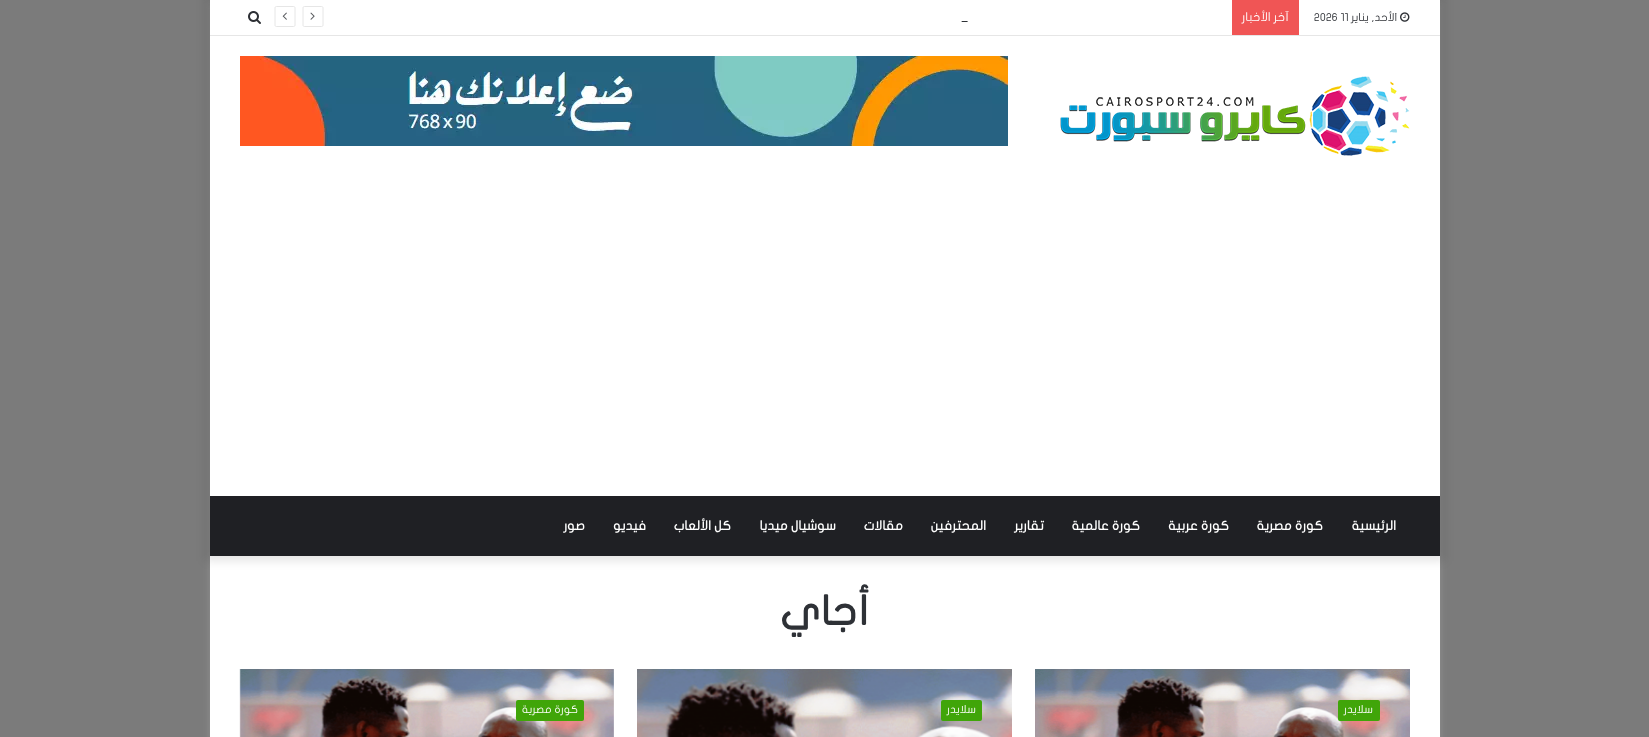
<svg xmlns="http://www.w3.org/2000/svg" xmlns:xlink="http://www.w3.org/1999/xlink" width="1649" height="737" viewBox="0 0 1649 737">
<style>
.cls-1{font:11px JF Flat;direction:rtl;fill:#2e3136}
.cls-2{font:11px JF Flat;fill:#2e3136}
.cls-3{font:12px JF Flat;direction:rtl;fill:#ffffff}
.cls-4{font:13px JF Flat;fill:#2e3136}
.cls-5{font:bold 13px JF Flat;direction:rtl;fill:#ffffff}
.cls-6{font:bold 41px JF Flat;direction:rtl;fill:#2e3136}
.cls-7{font:11px JF Flat;direction:rtl;fill:#ffffff}
</style>
<defs>
<clipPath id="clip1"><path d="M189 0H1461V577H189ZM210 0H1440V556H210Z" clip-rule="evenodd"/></clipPath>
</defs>
<rect width="100%" height="100%" fill="#7b7b7b"/>
<rect fill="#ababab" fill-opacity="0.5" filter="blur(3.5px)" x="210" y="1" width="1230" height="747"/>
<rect fill="#ffffff" x="210" y="0" width="1230" height="737"/>
<g clip-path="url(#clip1)">
<rect fill="#000000" fill-opacity="0.1" filter="blur(5px)" x="205" y="-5" width="1240" height="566"/>
</g>
<rect fill="#e6e6e6" x="210" y="35" width="1230" height="1"/>
<image xlink:href="image0.png" x="1400" y="12" width="10" height="10"/>
<rect fill="#f05555" x="1232" y="0" width="67" height="35"/>
<path fill="none" stroke="#e6e6e6" d="M321.5 26.5H304.5C303.5 26.5 303 26 303 25V8C303 7 303.5 6.5 304.5 6.5H321.5C322.5 6.5 323 7 323 8V25C323 26 322.5 26.5 321.5 26.5Z"/>
<image xlink:href="image1.png" x="310" y="12" width="5" height="8"/>
<path fill="none" stroke="#e6e6e6" d="M293.5 26.5H276.5C275.5 26.5 275 26 275 25V8C275 7 275.5 6.5 276.5 6.5H293.5C294.5 6.5 295 7 295 8V25C295 26 294.5 26.5 293.5 26.5Z"/>
<image xlink:href="image2.png" x="282" y="12" width="5" height="8"/>
<image xlink:href="image3.png" x="248" y="11" width="13" height="13"/>
<image xlink:href="image4.png" x="1060" y="76" width="350" height="80"/>
<image xlink:href="image5.png" x="240" y="56" width="768" height="90"/>
<rect fill="#1f2024" x="210" y="496" width="1230" height="60"/>
<image xlink:href="image6.png" x="1035" y="669" width="375" height="68"/>
<rect fill="#40a509" x="1338" y="700" width="42" height="21" rx="2"/>
<image xlink:href="image7.png" x="637" y="669" width="375" height="68"/>
<rect fill="#40a509" x="941" y="700" width="41" height="21" rx="2"/>
<image xlink:href="image8.png" x="239" y="669" width="375" height="68"/>
<rect fill="#40a509" x="516" y="700" width="68" height="21" rx="2"/>
<text class="cls-1" x="1397" y="21">الأحد, يناير</text>
<text class="cls-2" x="1314" y="21">2026 11</text>
<text class="cls-3" x="1289" y="21">آخر الأخبار</text>
<text class="cls-4" x="961" y="21">_</text>
<text class="cls-5" x="1396" y="530">الرئيسية</text>
<text class="cls-5" x="1323" y="530">كورة مصرية</text>
<text class="cls-5" x="1229" y="530">كورة عربية</text>
<text class="cls-5" x="1140" y="530">كورة عالمية</text>
<text class="cls-5" x="1044" y="530">تقارير</text>
<text class="cls-5" x="986" y="530">المحترفين</text>
<text class="cls-5" x="903" y="530">مقالات</text>
<text class="cls-5" x="836" y="530">سوشيال ميديا</text>
<text class="cls-5" x="731" y="530">كل الألعاب</text>
<text class="cls-5" x="646" y="530">فيديو</text>
<text class="cls-5" x="585" y="530">صور</text>
<text class="cls-6" x="870" y="625">أجاي</text>
<text class="cls-7" x="1373" y="713">سلايدر</text>
<text class="cls-7" x="976" y="713">سلايدر</text>
<text class="cls-7" x="578" y="713">كورة مصرية</text>
</svg>
